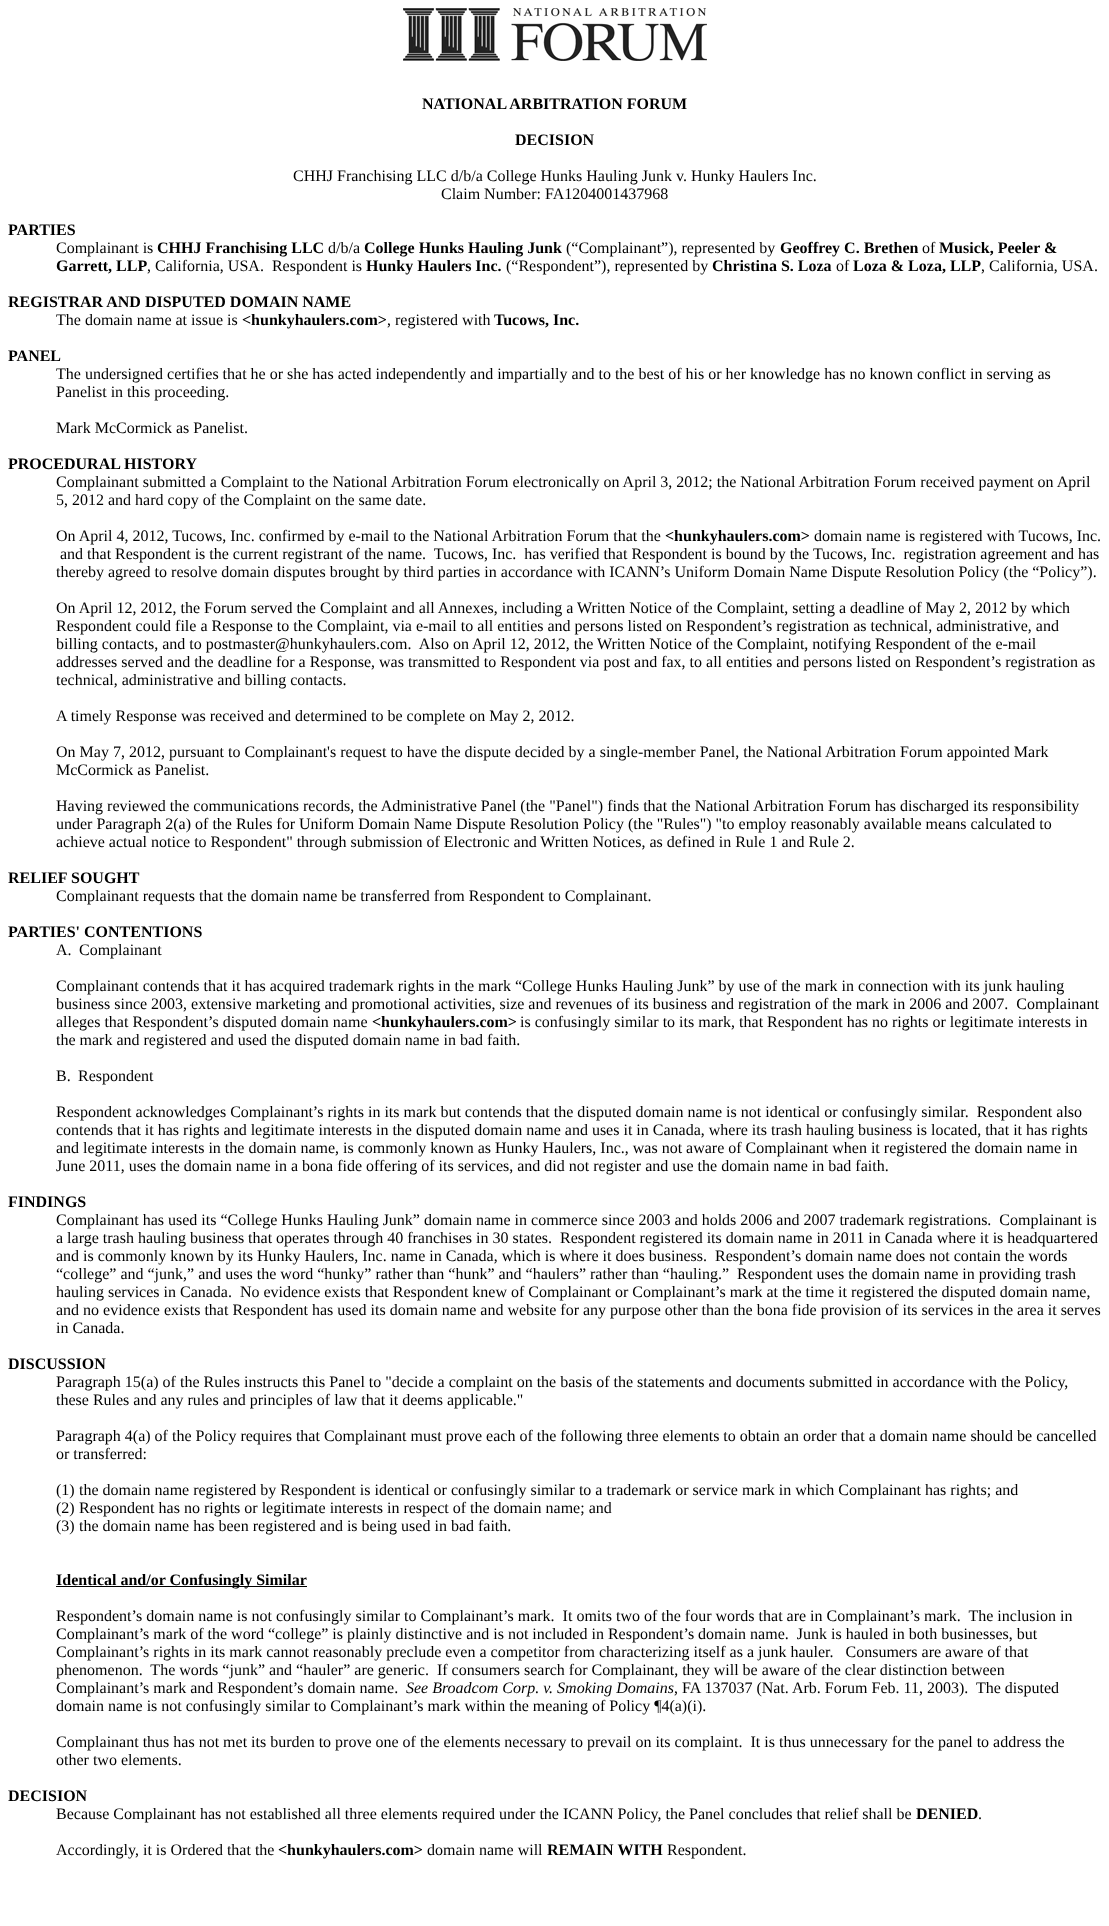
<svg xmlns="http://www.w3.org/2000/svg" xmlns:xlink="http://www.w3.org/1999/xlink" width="1109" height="1926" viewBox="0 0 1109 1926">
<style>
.cls-1{font:bold 16px Liberation Serif;fill:#000000}
.cls-2{font:16px Liberation Serif;fill:#000000}
.cls-3{font:italic 16px Liberation Serif;fill:#000000}
</style>
<rect width="100%" height="100%" fill="#ffffff"/>
<image xlink:href="image0.png" x="403" y="8" width="304" height="53"/>
<rect fill="#000000" x="56" y="1586" width="251" height="1"/>
<text class="cls-1" x="422" y="109">NATIONAL ARBITRATION FORUM</text>
<text class="cls-1" x="515" y="145">DECISION</text>
<text class="cls-2" x="293" y="181">CHHJ Franchising LLC d/b/a College Hunks Hauling Junk v. Hunky Haulers Inc.</text>
<text class="cls-2" x="441" y="199">Claim Number: FA1204001437968</text>
<text class="cls-1" x="8" y="235">PARTIES</text>
<text class="cls-2" x="56" y="253">Complainant is</text>
<text class="cls-1" x="157" y="253">CHHJ Franchising LLC</text>
<text class="cls-2" x="328" y="253">d/b/a</text>
<text class="cls-1" x="364" y="253">College Hunks Hauling Junk</text>
<text class="cls-2" x="566" y="253">(“Complainant”), represented by</text>
<text class="cls-1" x="780" y="253">Geoffrey C. Brethen</text>
<text class="cls-2" x="922" y="253">of</text>
<text class="cls-1" x="939" y="253">Musick, Peeler &amp;</text>
<text class="cls-1" x="56" y="271">Garrett, LLP</text>
<text class="cls-2" xml:space="preserve" x="147" y="271">, California, USA.  Respondent is</text>
<text class="cls-1" x="366" y="271">Hunky Haulers Inc.</text>
<text class="cls-2" x="506" y="271">(“Respondent”), represented by</text>
<text class="cls-1" x="712" y="271">Christina S. Loza</text>
<text class="cls-2" x="836" y="271">of</text>
<text class="cls-1" x="853" y="271">Loza &amp; Loza, LLP</text>
<text class="cls-2" x="981" y="271">, California, USA.</text>
<text class="cls-1" x="8" y="307">REGISTRAR AND DISPUTED DOMAIN NAME</text>
<text class="cls-2" x="56" y="325">The domain name at issue is</text>
<text class="cls-1" x="242" y="325">&lt;hunkyhaulers.com&gt;</text>
<text class="cls-2" x="387" y="325">, registered with</text>
<text class="cls-1" x="494" y="325">Tucows, Inc.</text>
<text class="cls-1" x="8" y="361">PANEL</text>
<text class="cls-2"><tspan x="56" y="379">The undersigned certifies that he or she has acted independently and impartially and to the best of his or her knowledge has no known conflict in serving as</tspan><tspan x="56" y="397">Panelist in this proceeding.</tspan></text>
<text class="cls-2" x="56" y="433">Mark McCormick as Panelist.</text>
<text class="cls-1" x="8" y="469">PROCEDURAL HISTORY</text>
<text class="cls-2"><tspan x="56" y="487">Complainant submitted a Complaint to the National Arbitration Forum electronically on April 3, 2012; the National Arbitration Forum received payment on April</tspan><tspan x="56" y="505">5, 2012 and hard copy of the Complaint on the same date.</tspan></text>
<text class="cls-2" x="56" y="541">On April 4, 2012, Tucows, Inc. confirmed by e-mail to the National Arbitration Forum that the</text>
<text class="cls-1" x="665" y="541">&lt;hunkyhaulers.com&gt;</text>
<text class="cls-2" x="814" y="541">domain name is registered with Tucows, Inc.</text>
<text class="cls-2" xml:space="preserve" x="60" y="559">and that Respondent is the current registrant of the name.  Tucows, Inc.  has verified that Respondent is bound by the Tucows, Inc.  registration agreement and has</text>
<text class="cls-2" x="56" y="577">thereby agreed to resolve domain disputes brought by third parties in accordance with ICANN’s Uniform Domain Name Dispute Resolution Policy (the “Policy”).</text>
<text class="cls-2" xml:space="preserve"><tspan x="56" y="613">On April 12, 2012, the Forum served the Complaint and all Annexes, including a Written Notice of the Complaint, setting a deadline of May 2, 2012 by which</tspan><tspan x="56" y="631">Respondent could file a Response to the Complaint, via e-mail to all entities and persons listed on Respondent’s registration as technical, administrative, and</tspan><tspan x="56" y="649">billing contacts, and to postmaster@hunkyhaulers.com.  Also on April 12, 2012, the Written Notice of the Complaint, notifying Respondent of the e-mail</tspan><tspan x="56" y="667">addresses served and the deadline for a Response, was transmitted to Respondent via post and fax, to all entities and persons listed on Respondent’s registration as</tspan><tspan x="56" y="685">technical, administrative and billing contacts.</tspan></text>
<text class="cls-2" x="56" y="721">A timely Response was received and determined to be complete on May 2, 2012.</text>
<text class="cls-2"><tspan x="56" y="757">On May 7, 2012, pursuant to Complainant's request to have the dispute decided by a single-member Panel, the National Arbitration Forum appointed Mark</tspan><tspan x="56" y="775">McCormick as Panelist.</tspan></text>
<text class="cls-2"><tspan x="56" y="811">Having reviewed the communications records, the Administrative Panel (the "Panel") finds that the National Arbitration Forum has discharged its responsibility</tspan><tspan x="56" y="829">under Paragraph 2(a) of the Rules for Uniform Domain Name Dispute Resolution Policy (the "Rules") "to employ reasonably available means calculated to</tspan><tspan x="56" y="847">achieve actual notice to Respondent" through submission of Electronic and Written Notices, as defined in Rule 1 and Rule 2.</tspan></text>
<text class="cls-1" x="8" y="883">RELIEF SOUGHT</text>
<text class="cls-2" x="56" y="901">Complainant requests that the domain name be transferred from Respondent to Complainant.</text>
<text class="cls-1" x="8" y="937">PARTIES' CONTENTIONS</text>
<text class="cls-2" x="56" y="955">A.</text>
<text class="cls-2" x="79" y="955">Complainant</text>
<text class="cls-2" xml:space="preserve"><tspan x="56" y="991">Complainant contends that it has acquired trademark rights in the mark “College Hunks Hauling Junk” by use of the mark in connection with its junk hauling</tspan><tspan x="56" y="1009">business since 2003, extensive marketing and promotional activities, size and revenues of its business and registration of the mark in 2006 and 2007.  Complainant</tspan><tspan x="56" y="1027">alleges that Respondent’s disputed domain name</tspan></text>
<text class="cls-1" x="372" y="1027">&lt;hunkyhaulers.com&gt;</text>
<text class="cls-2" x="520" y="1027">is confusingly similar to its mark, that Respondent has no rights or legitimate interests in</text>
<text class="cls-2" x="56" y="1045">the mark and registered and used the disputed domain name in bad faith.</text>
<text class="cls-2" x="56" y="1081">B.</text>
<text class="cls-2" x="78" y="1081">Respondent</text>
<text class="cls-2" xml:space="preserve"><tspan x="56" y="1117">Respondent acknowledges Complainant’s rights in its mark but contends that the disputed domain name is not identical or confusingly similar.  Respondent also</tspan><tspan x="56" y="1135">contends that it has rights and legitimate interests in the disputed domain name and uses it in Canada, where its trash hauling business is located, that it has rights</tspan><tspan x="56" y="1153">and legitimate interests in the domain name, is commonly known as Hunky Haulers, Inc., was not aware of Complainant when it registered the domain name in</tspan><tspan x="56" y="1171">June 2011, uses the domain name in a bona fide offering of its services, and did not register and use the domain name in bad faith.</tspan></text>
<text class="cls-1" x="8" y="1207">FINDINGS</text>
<text class="cls-2" xml:space="preserve"><tspan x="56" y="1225">Complainant has used its “College Hunks Hauling Junk” domain name in commerce since 2003 and holds 2006 and 2007 trademark registrations.  Complainant is</tspan><tspan x="56" y="1243">a large trash hauling business that operates through 40 franchises in 30 states.  Respondent registered its domain name in 2011 in Canada where it is headquartered</tspan><tspan x="56" y="1261">and is commonly known by its Hunky Haulers, Inc. name in Canada, which is where it does business.  Respondent’s domain name does not contain the words</tspan><tspan x="56" y="1279">“college” and “junk,” and uses the word “hunky” rather than “hunk” and “haulers” rather than “hauling.”  Respondent uses the domain name in providing trash</tspan><tspan x="56" y="1297">hauling services in Canada.  No evidence exists that Respondent knew of Complainant or Complainant’s mark at the time it registered the disputed domain name,</tspan><tspan x="56" y="1315">and no evidence exists that Respondent has used its domain name and website for any purpose other than the bona fide provision of its services in the area it serves</tspan><tspan x="56" y="1333">in Canada.</tspan></text>
<text class="cls-1" x="8" y="1369">DISCUSSION</text>
<text class="cls-2"><tspan x="56" y="1387">Paragraph 15(a) of the Rules instructs this Panel to "decide a complaint on the basis of the statements and documents submitted in accordance with the Policy,</tspan><tspan x="56" y="1405">these Rules and any rules and principles of law that it deems applicable."</tspan></text>
<text class="cls-2"><tspan x="56" y="1441">Paragraph 4(a) of the Policy requires that Complainant must prove each of the following three elements to obtain an order that a domain name should be cancelled</tspan><tspan x="56" y="1459">or transferred:</tspan></text>
<text class="cls-2" x="56" y="1495">(1)</text>
<text class="cls-2" x="79" y="1495">the domain name registered by Respondent is identical or confusingly similar to a trademark or service mark in which Complainant has rights; and</text>
<text class="cls-2" x="56" y="1513">(2)</text>
<text class="cls-2" x="79" y="1513">Respondent has no rights or legitimate interests in respect of the domain name; and</text>
<text class="cls-2" x="56" y="1531">(3)</text>
<text class="cls-2" x="79" y="1531">the domain name has been registered and is being used in bad faith.</text>
<text class="cls-1" x="56" y="1585">Identical and/or Confusingly Similar</text>
<text class="cls-2" xml:space="preserve"><tspan x="56" y="1621">Respondent’s domain name is not confusingly similar to Complainant’s mark.  It omits two of the four words that are in Complainant’s mark.  The inclusion in</tspan><tspan x="56" y="1639">Complainant’s mark of the word “college” is plainly distinctive and is not included in Respondent’s domain name.  Junk is hauled in both businesses, but</tspan><tspan x="56" y="1657">Complainant’s rights in its mark cannot reasonably preclude even a competitor from characterizing itself as a junk hauler.   Consumers are aware of that</tspan><tspan x="56" y="1675">phenomenon.  The words “junk” and “hauler” are generic.  If consumers search for Complainant, they will be aware of the clear distinction between</tspan><tspan x="56" y="1693">Complainant’s mark and Respondent’s domain name.</tspan></text>
<text class="cls-3" x="406" y="1693">See Broadcom Corp. v. Smoking Domains</text>
<text class="cls-2" xml:space="preserve" x="674" y="1693">, FA 137037 (Nat. Arb. Forum Feb. 11, 2003).  The disputed</text>
<text class="cls-2" x="56" y="1711">domain name is not confusingly similar to Complainant’s mark within the meaning of Policy ¶4(a)(i).</text>
<text class="cls-2" xml:space="preserve"><tspan x="56" y="1747">Complainant thus has not met its burden to prove one of the elements necessary to prevail on its complaint.  It is thus unnecessary for the panel to address the</tspan><tspan x="56" y="1765">other two elements.</tspan></text>
<text class="cls-1" x="8" y="1801">DECISION</text>
<text class="cls-2" x="56" y="1819">Because Complainant has not established all three elements required under the ICANN Policy, the Panel concludes that relief shall be</text>
<text class="cls-1" x="916" y="1819">DENIED</text>
<text class="cls-2" x="978" y="1819">.</text>
<text class="cls-2" x="56" y="1855">Accordingly, it is Ordered that the</text>
<text class="cls-1" x="278" y="1855">&lt;hunkyhaulers.com&gt;</text>
<text class="cls-2" x="427" y="1855">domain name will</text>
<text class="cls-1" x="547" y="1855">REMAIN WITH</text>
<text class="cls-2" x="667" y="1855">Respondent.</text>
</svg>
